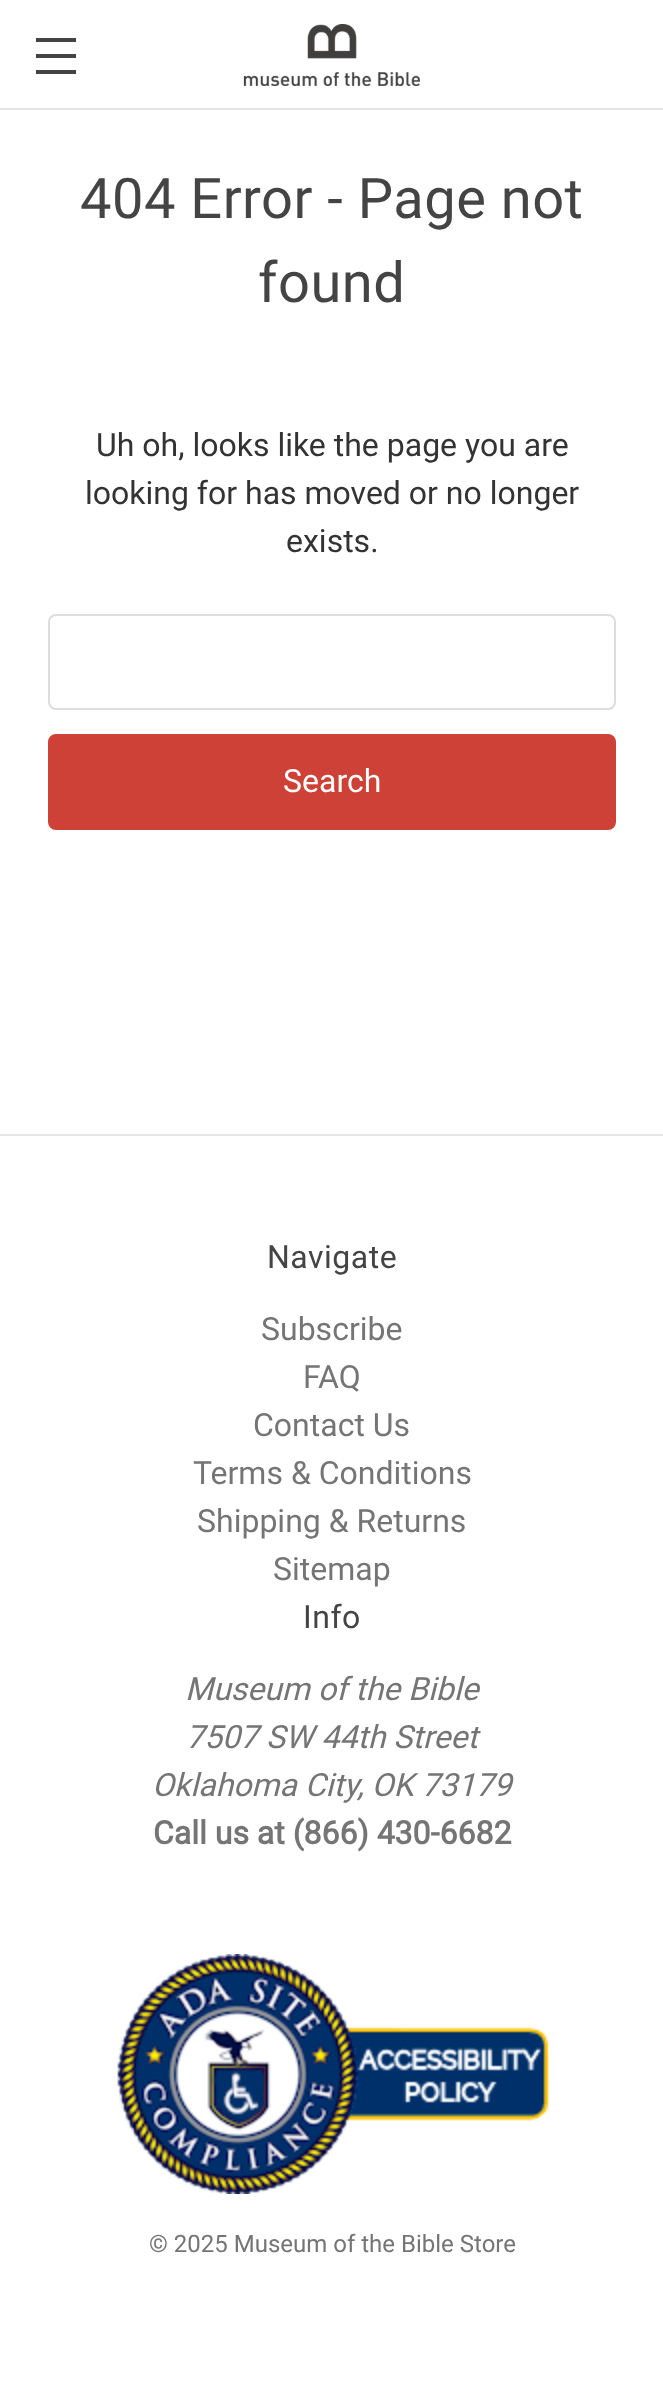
<svg xmlns="http://www.w3.org/2000/svg" xmlns:xlink="http://www.w3.org/1999/xlink" width="663" height="2388" viewBox="0 0 663 2388">
<style>
.cls-1{font:56px Roboto;letter-spacing:0.5px;fill:#444444}
.cls-2{font:32px Roboto;fill:#333333}
.cls-3{font:32px Roboto;fill:#ffffff}
.cls-4{font:32px Roboto;letter-spacing:0.5px;fill:#444444}
.cls-5{font:32px Roboto;fill:#757575}
.cls-6{font:italic 32px Roboto;fill:#757575}
.cls-7{font:bold 32px Roboto;fill:#757575}
.cls-8{font:24px Roboto;fill:#757575}
</style>
<rect width="100%" height="100%" fill="#ffffff"/>
<rect fill="#e5e5e5" x="0" y="108" width="663" height="2"/>
<rect fill="#444444" x="36" y="54" width="40" height="4"/>
<rect fill="#444444" x="36" y="38" width="40" height="4"/>
<rect fill="#444444" x="36" y="70" width="40" height="4"/>
<image xlink:href="image0.png" x="243" y="24" width="177" height="62"/>
<rect fill="none" stroke="#dddddd" stroke-width="2" x="49" y="615" width="566" height="94" rx="7"/>
<rect fill="#cd4137" stroke="#cd4137" stroke-width="2" x="49" y="735" width="566" height="94" rx="7"/>
<rect fill="#e5e5e5" x="0" y="1134" width="663" height="2"/>
<image xlink:href="image1.png" x="117" y="1954" width="432" height="240"/>
<text class="cls-1" x="80" y="218">404 Error - Page not</text>
<text class="cls-1" x="258" y="302">found</text>
<text class="cls-2" x="96" y="456">Uh oh, looks like the page you are</text>
<text class="cls-2" x="85" y="504">looking for has moved or no longer</text>
<text class="cls-2" x="286" y="552">exists.</text>
<text class="cls-3" x="283" y="792">Search</text>
<text class="cls-4" x="267" y="1268">Navigate</text>
<text class="cls-5" x="261" y="1340">Subscribe</text>
<text class="cls-5" x="303" y="1388">FAQ</text>
<text class="cls-5" x="253" y="1436">Contact Us</text>
<text class="cls-5" x="193" y="1484">Terms &amp; Conditions</text>
<text class="cls-5" x="197" y="1532">Shipping &amp; Returns</text>
<text class="cls-5" x="273" y="1580">Sitemap</text>
<text class="cls-4" x="303" y="1628">Info</text>
<text class="cls-6" x="185" y="1700">Museum of the Bible</text>
<text class="cls-6" x="186" y="1748">7507 SW 44th Street</text>
<text class="cls-6" x="152" y="1796">Oklahoma City, OK 73179</text>
<text class="cls-7" x="153" y="1844">Call us at (866) 430-6682</text>
<text class="cls-8" x="149" y="2252">© 2025 Museum of the Bible Store</text>
</svg>
